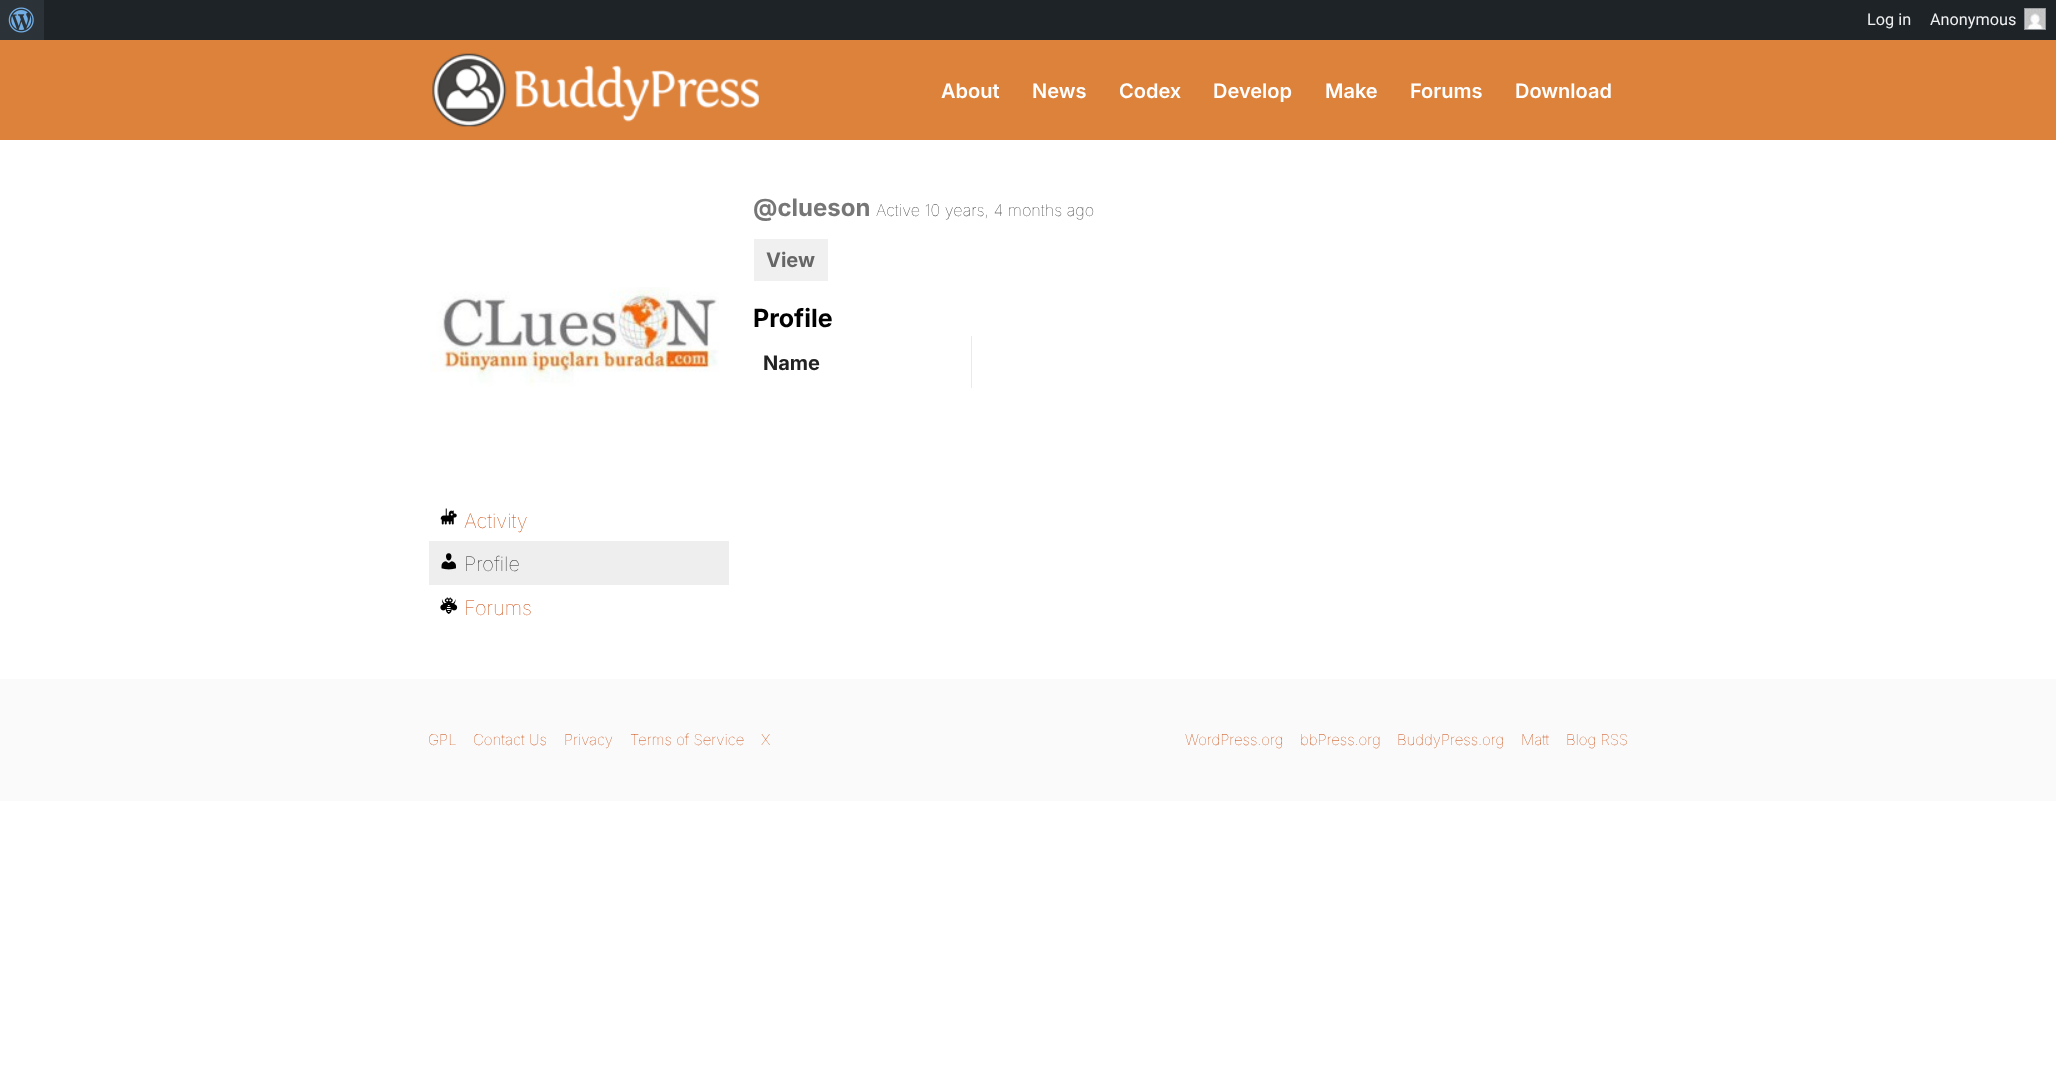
<svg xmlns="http://www.w3.org/2000/svg" xmlns:xlink="http://www.w3.org/1999/xlink" width="2056" height="1075" viewBox="0 0 2056 1075">
<style>
.cls-1{font:16.25px Roboto;fill:#f0f0f1}
.cls-2{font:600 20px Inter;fill:#ffffff}
.cls-3{font:bold 24px Inter;fill:#767676}
.cls-4{font:100 16.25px Inter;fill:#222222}
.cls-5{font:bold 20px Inter;fill:#666666}
.cls-6{font:bold 25px Inter;fill:#000000}
.cls-7{font:bold 20px Inter;fill:#222222}
.cls-8{font:100 20px Inter;fill:#c74200}
.cls-9{font:100 20px Inter;fill:#222222}
.cls-10{font:100 15px Inter;fill:#c74200}
</style>
<rect width="100%" height="100%" fill="#ffffff"/>
<rect fill="#1d2327" x="44" y="0" width="2012" height="40"/>
<rect fill="#2c3338" x="0" y="0" width="44" height="40"/>
<image xlink:href="image0.png" x="8" y="7" width="26" height="26"/>
<rect fill="#f0f0f1" stroke="#8c8f94" x="2024.5" y="8.5" width="21" height="21"/>
<image xlink:href="image1.png" x="2025" y="8" width="21" height="21"/>
<rect fill="#dd823b" x="0" y="40" width="2056" height="100"/>
<image xlink:href="image2.png" x="432" y="53" width="327" height="74"/>
<rect fill="#f0f0f0" x="754" y="239" width="74" height="42"/>
<rect fill="#eaeaea" x="971" y="336" width="1" height="52"/>
<image xlink:href="image3.png" x="430" y="287" width="289" height="100"/>
<image xlink:href="image4.png" x="440" y="508" width="17" height="17"/>
<rect fill="#eeeeee" x="429" y="541" width="300" height="44"/>
<image xlink:href="image5.png" x="441" y="553" width="15" height="17"/>
<image xlink:href="image6.png" x="440" y="597" width="18" height="17"/>
<rect fill="#fafafa" x="0" y="679" width="2056" height="122"/>
<text class="cls-1" x="1867" y="25">Log in</text>
<text class="cls-1" x="1930" y="25">Anonymous</text>
<text class="cls-2" x="941" y="98">About</text>
<text class="cls-2" x="1032" y="98">News</text>
<text class="cls-2" x="1119" y="98">Codex</text>
<text class="cls-2" x="1213" y="98">Develop</text>
<text class="cls-2" x="1325" y="98">Make</text>
<text class="cls-2" x="1410" y="98">Forums</text>
<text class="cls-2" x="1515" y="98">Download</text>
<text class="cls-3" x="753" y="216">@clueson</text>
<text class="cls-4" x="876" y="216">Active 10 years, 4 months ago</text>
<text class="cls-5" x="766" y="267">View</text>
<text class="cls-6" x="753" y="327">Profile</text>
<text class="cls-7" x="763" y="370">Name</text>
<text class="cls-8" x="464" y="528">Activity</text>
<text class="cls-9" x="464" y="571">Profile</text>
<text class="cls-8" x="464" y="615">Forums</text>
<text class="cls-10" x="428" y="745">GPL</text>
<text class="cls-10" x="473" y="745">Contact Us</text>
<text class="cls-10" x="564" y="745">Privacy</text>
<text class="cls-10" x="630" y="745">Terms of Service</text>
<text class="cls-10" x="761" y="745">X</text>
<text class="cls-10" x="1185" y="745">WordPress.org</text>
<text class="cls-10" x="1300" y="745">bbPress.org</text>
<text class="cls-10" x="1397" y="745">BuddyPress.org</text>
<text class="cls-10" x="1521" y="745">Matt</text>
<text class="cls-10" x="1566" y="745">Blog RSS</text>
</svg>
